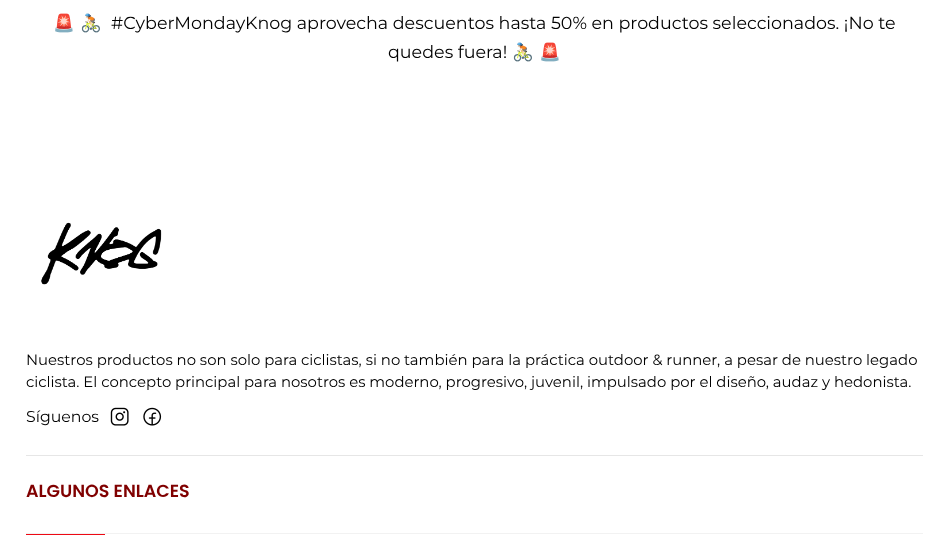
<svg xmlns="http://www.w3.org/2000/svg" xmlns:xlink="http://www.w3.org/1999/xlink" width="948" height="555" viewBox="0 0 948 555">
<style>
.cls-1{font:17.5px Noto Color Emoji;fill:#000000}
.cls-2{font:17.5px Montserrat;fill:#000000}
.cls-3{font:14.88px Montserrat;fill:#000000}
.cls-4{font:15.75px Montserrat;fill:#000000}
.cls-5{font:600 17.5px Poppins;fill:#800000}
</style>
<rect width="100%" height="100%" fill="#ffffff"/>
<image xlink:href="image0.png" x="41" y="222" width="121" height="63"/>
<image xlink:href="image1.png" x="110" y="407" width="19" height="19"/>
<image xlink:href="image2.png" x="143" y="407" width="19" height="19"/>
<rect fill="#e6e6e6" x="26" y="455" width="897" height="1"/>
<rect fill="#f2f2f2" x="26" y="533" width="897" height="1"/>
<rect fill="#ed0914" x="26" y="534" width="79" height="1"/>
<text class="cls-1" x="53" y="29">🚨</text>
<text class="cls-1" x="80" y="29">🚴🏻</text>
<text class="cls-2" x="111" y="29">#CyberMondayKnog aprovecha descuentos hasta 50% en productos seleccionados. ¡No te</text>
<text class="cls-2" x="388" y="58">quedes fuera!</text>
<text class="cls-1" x="512" y="58">🚴🏻</text>
<text class="cls-1" x="539" y="58">🚨</text>
<text class="cls-3"><tspan x="26" y="365">Nuestros productos no son solo para ciclistas, si no también para la práctica outdoor &amp; runner, a pesar de nuestro legado</tspan><tspan x="26" y="387">ciclista. El concepto principal para nosotros es moderno, progresivo, juvenil, impulsado por el diseño, audaz y hedonista.</tspan></text>
<text class="cls-4" x="26" y="422">Síguenos</text>
<text class="cls-5" x="26" y="497">ALGUNOS ENLACES</text>
</svg>
